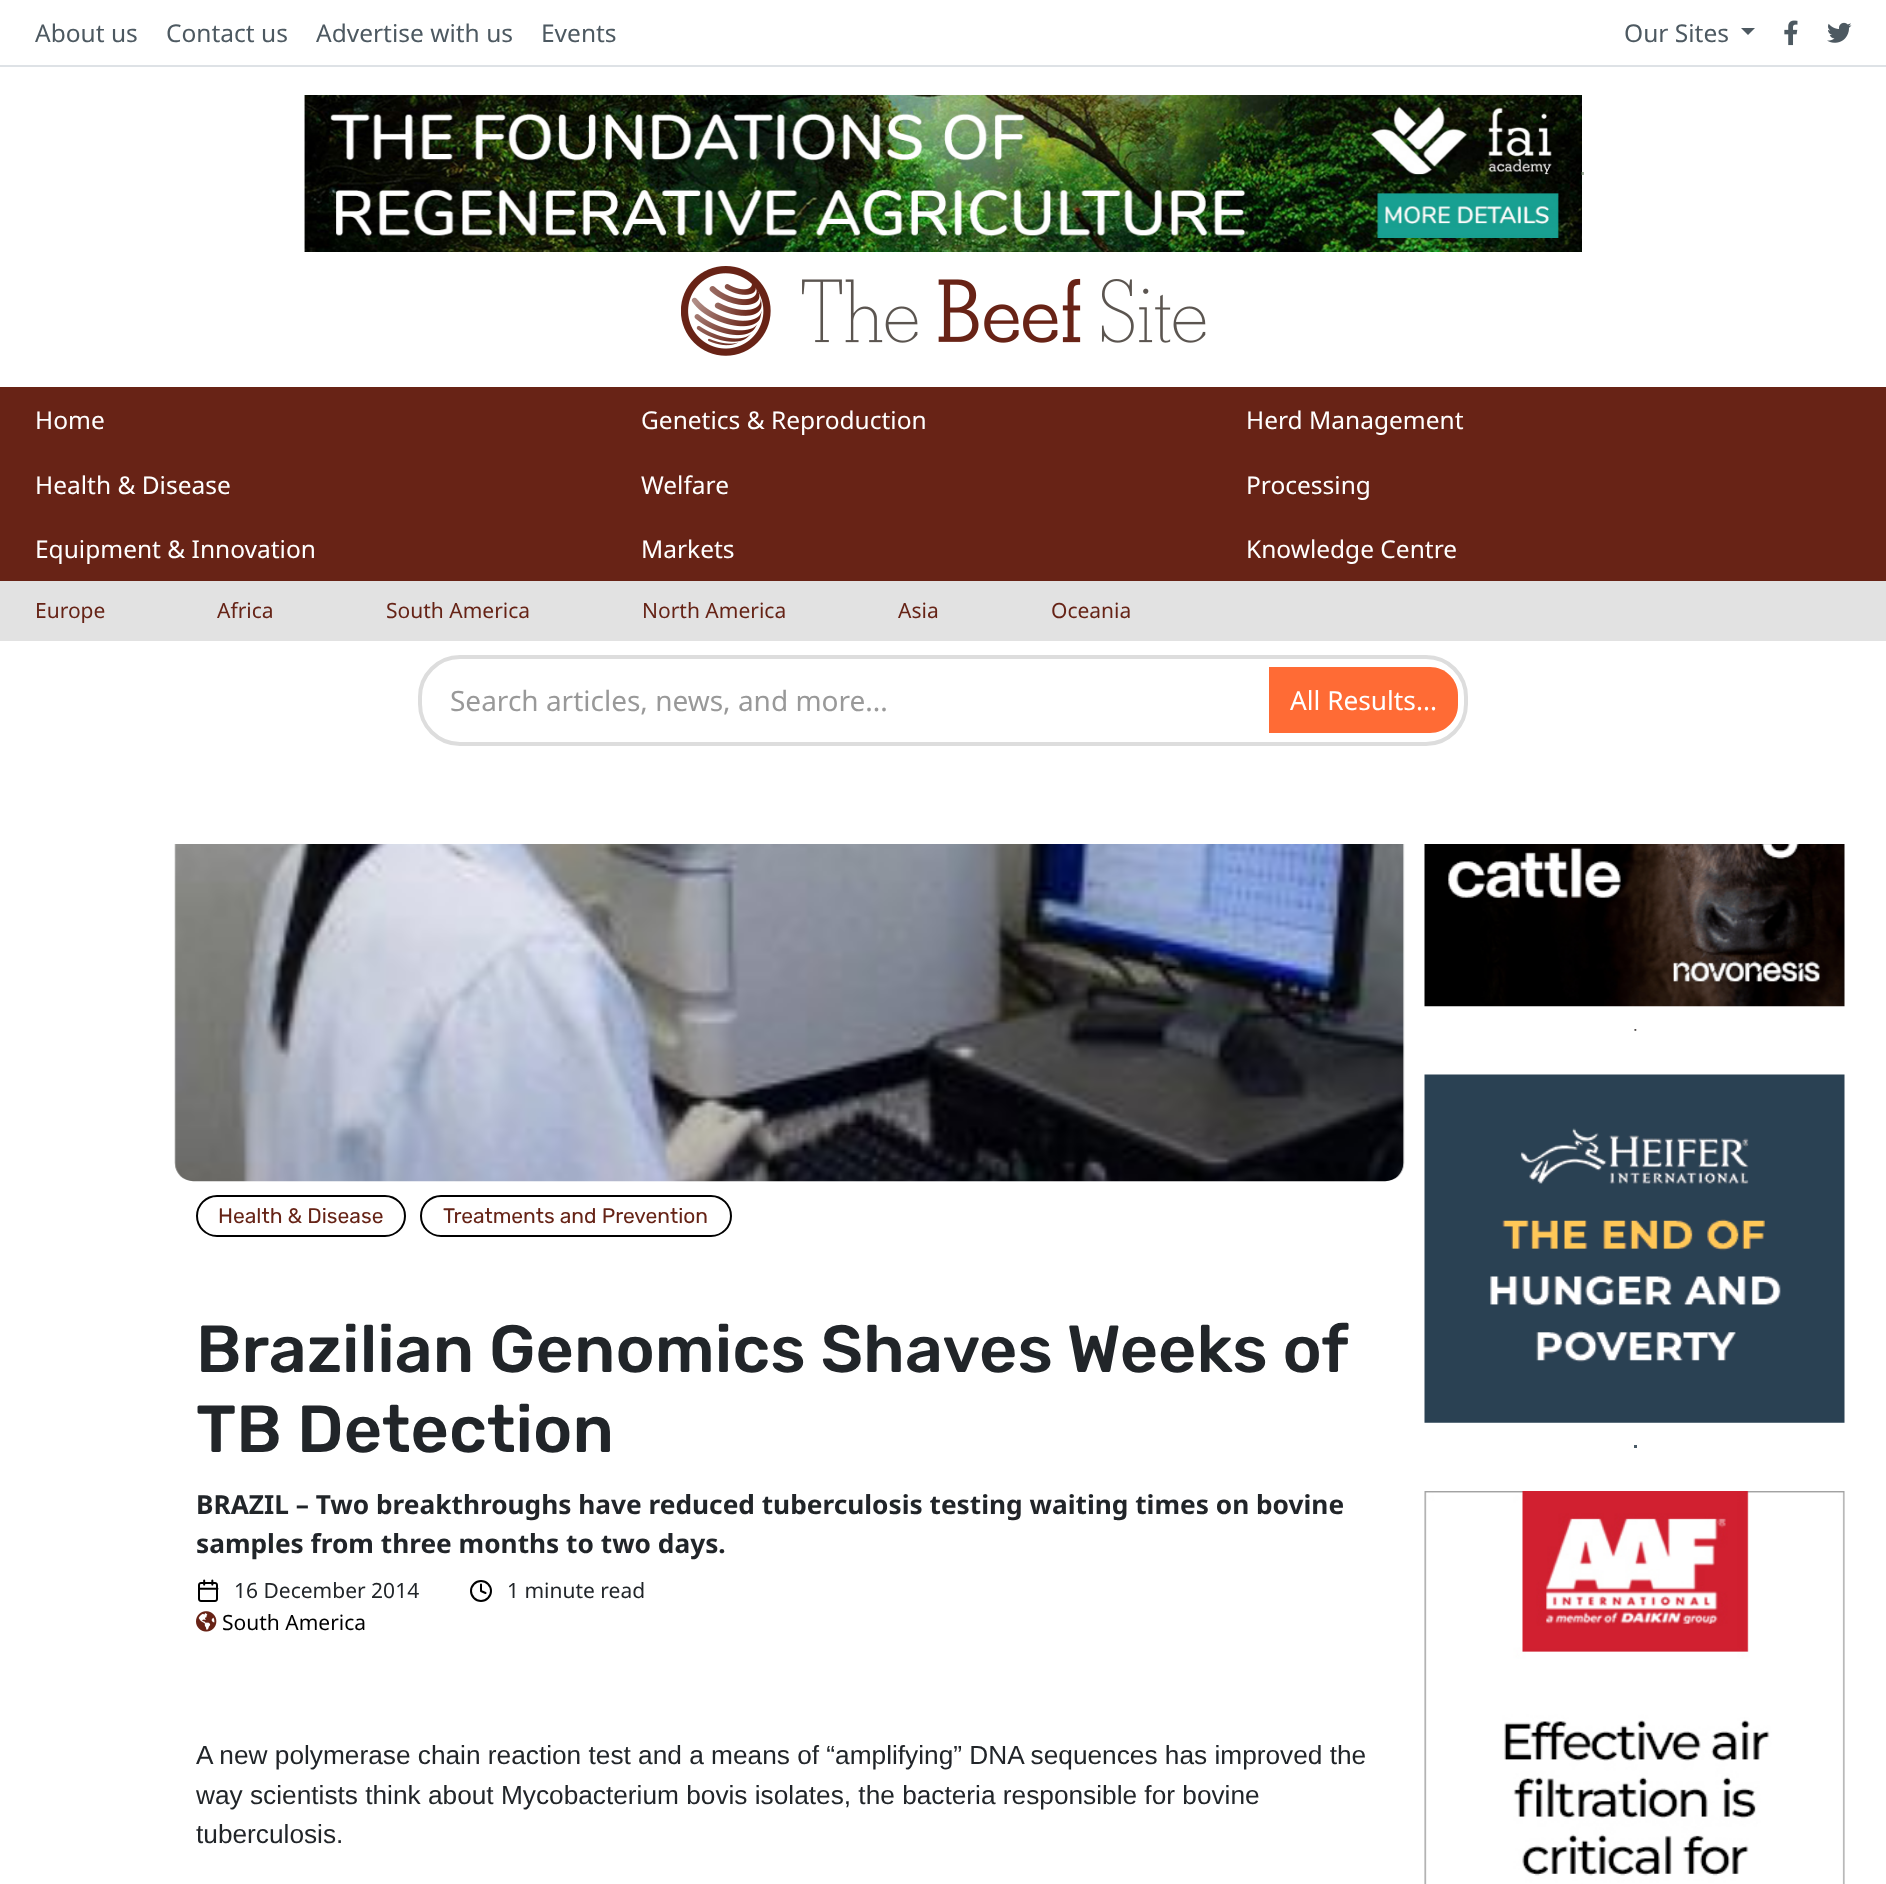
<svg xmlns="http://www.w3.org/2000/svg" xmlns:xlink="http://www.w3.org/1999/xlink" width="1886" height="1884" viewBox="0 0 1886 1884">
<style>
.cls-1{font:24.5px Noto Sans;fill:#4d5961}
.cls-2{font:24.5px Noto Sans;fill:#ffffff}
.cls-3{font:21px Noto Sans;fill:#662316}
.cls-4{font:28px Noto Sans;fill:#999999}
.cls-5{font:26.25px Noto Sans;fill:#ffffff}
.cls-6{font:300 21px Rubik;fill:#662316}
.cls-7{font:500 66.5px Rubik;fill:#212529}
.cls-8{font:bold 26.25px Noto Sans;fill:#212529}
.cls-9{font:21px Noto Sans;fill:#212529}
.cls-10{font:21px Noto Sans;fill:#000000}
.cls-11{font:26.25px Liberation Sans;fill:#212529}
</style>
<rect width="100%" height="100%" fill="#ffffff"/>
<rect fill="#dee2e6" x="0" y="65" width="1886" height="2"/>
<path fill="#4d5961" d="M1741 28H1755L1748 35Z"/>
<image xlink:href="image0.png" x="1784" y="20" width="14" height="26"/>
<image xlink:href="image1.png" x="1827" y="22" width="25" height="21"/>
<image xlink:href="image2.png" x="304" y="95" width="1278" height="157"/>
<rect fill="#51694b" fill-opacity="0.51" x="1581" y="172" width="3" height="3"/>
<image xlink:href="image3.png" x="681" y="266" width="525" height="90"/>
<rect fill="#682316" x="0" y="387" width="1886" height="194"/>
<rect fill="#e2e2e2" x="0" y="581" width="1886" height="60"/>
<rect fill="none" stroke="#dddddd" stroke-width="4" x="420" y="657" width="1046" height="87" rx="40"/>
<path fill="#ff6b35" d="M1269 667H1430C1445.5 667 1458 679.5 1458 695V705C1458 720.5 1445.5 733 1430 733H1269Z"/>
<image xlink:href="image4.png" x="174" y="844" width="1231" height="338"/>
<rect fill="none" stroke="#000000" stroke-width="2" x="197" y="1196" width="208" height="40" rx="20"/>
<rect fill="none" stroke="#000000" stroke-width="2" x="421" y="1196" width="310" height="40" rx="20"/>
<image xlink:href="image5.png" x="198" y="1579" width="21" height="23"/>
<circle fill="none" stroke="#000000" stroke-width="2" cx="481" cy="1591" r="10"/>
<path fill="none" stroke="#000000" stroke-width="2" stroke-linecap="round" stroke-linejoin="round" d="M481 1584.5V1591L485.5 1593"/>
<image xlink:href="image6.png" x="196" y="1611" width="21" height="21"/>
<image xlink:href="image7.png" x="1424" y="844" width="421" height="163"/>
<image xlink:href="image8.png" x="1634" y="1029" width="3" height="2"/>
<image xlink:href="image9.png" x="1424" y="1074" width="421" height="349"/>
<rect fill="#4a5b67" x="1634" y="1445" width="3" height="3"/>
<image xlink:href="image10.png" x="1424" y="1491" width="421" height="393"/>
<text class="cls-1" x="35" y="42">About us</text>
<text class="cls-1" x="166" y="42">Contact us</text>
<text class="cls-1" x="316" y="42">Advertise with us</text>
<text class="cls-1" x="541" y="42">Events</text>
<text class="cls-1" x="1624" y="42">Our Sites</text>
<text class="cls-2" x="35" y="429">Home</text>
<text class="cls-2" x="641" y="429">Genetics &amp; Reproduction</text>
<text class="cls-2" x="1246" y="429">Herd Management</text>
<text class="cls-2" x="35" y="494">Health &amp; Disease</text>
<text class="cls-2" x="641" y="494">Welfare</text>
<text class="cls-2" x="1246" y="494">Processing</text>
<text class="cls-2" x="35" y="558">Equipment &amp; Innovation</text>
<text class="cls-2" x="641" y="558">Markets</text>
<text class="cls-2" x="1246" y="558">Knowledge Centre</text>
<text class="cls-3" x="35" y="618">Europe</text>
<text class="cls-3" x="217" y="618">Africa</text>
<text class="cls-3" x="386" y="618">South America</text>
<text class="cls-3" x="642" y="618">North America</text>
<text class="cls-3" x="898" y="618">Asia</text>
<text class="cls-3" x="1051" y="618">Oceania</text>
<text class="cls-4" x="450" y="711">Search articles, news, and more...</text>
<text class="cls-5" x="1290" y="710">All Results...</text>
<text class="cls-6" x="218" y="1223">Health &amp; Disease</text>
<text class="cls-6" x="443" y="1223">Treatments and Prevention</text>
<text class="cls-7"><tspan x="196" y="1372" word-spacing="-0.5">Brazilian Genomics Shaves Weeks of</tspan><tspan x="196" y="1452">TB Detection</tspan></text>
<text class="cls-8"><tspan x="196" y="1514">BRAZIL – Two breakthroughs have reduced tuberculosis testing waiting times on bovine</tspan><tspan x="196" y="1553">samples from three months to two days.</tspan></text>
<text class="cls-9" x="234" y="1598">16 December 2014</text>
<text class="cls-9" x="507" y="1598">1 minute read</text>
<text class="cls-10" x="222" y="1630">South America</text>
<text class="cls-11"><tspan x="196" y="1764">A new polymerase chain reaction test and a means of “amplifying” DNA sequences has improved the</tspan><tspan x="196" y="1804">way scientists think about Mycobacterium bovis isolates, the bacteria responsible for bovine</tspan><tspan x="196" y="1843">tuberculosis.</tspan></text>
</svg>
